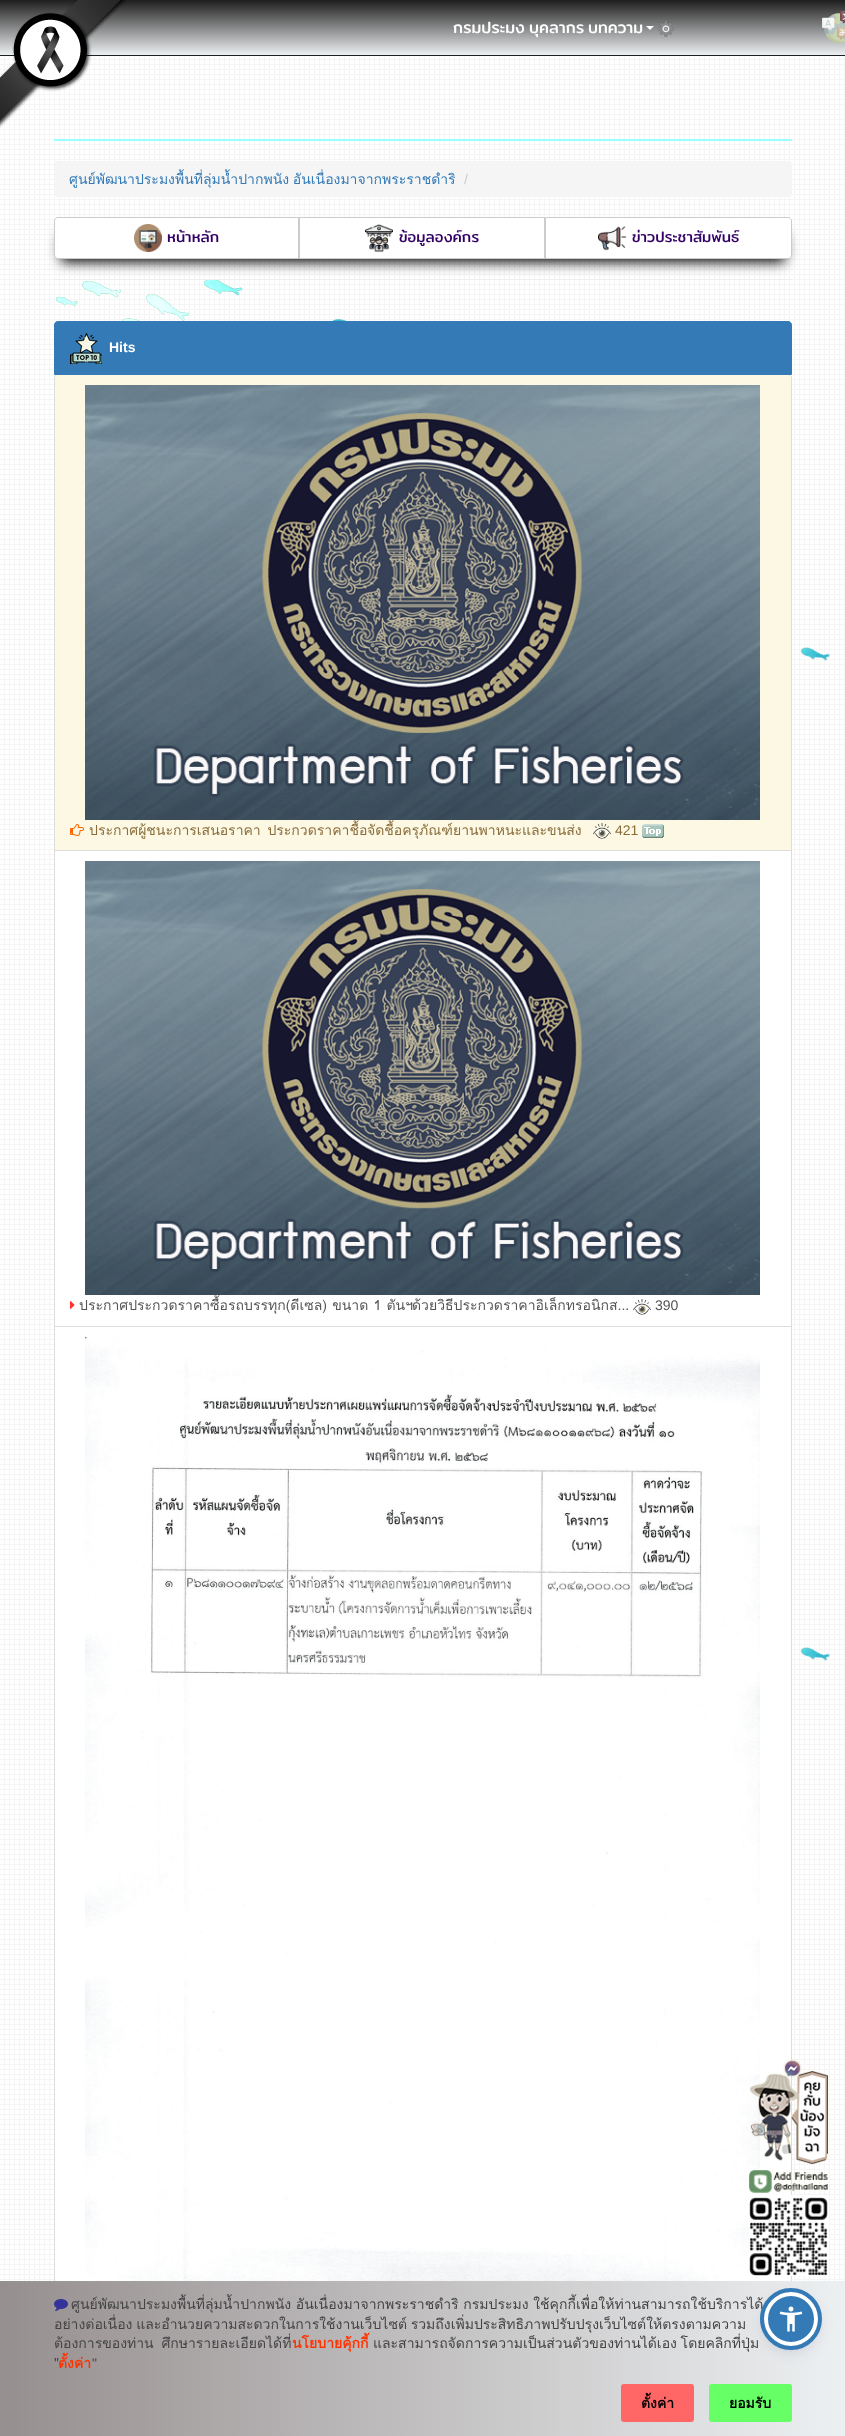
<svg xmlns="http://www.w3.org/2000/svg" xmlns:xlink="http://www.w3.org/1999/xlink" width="845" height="2436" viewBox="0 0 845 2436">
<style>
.cls-1{font:16px Mitr;fill:#ffffff}
.cls-2{font:14px Loma;fill:#444444}
.cls-3{font:bold 14px Loma;fill:#ff3300}
.cls-4{font:14px Liberation Sans;fill:#444444}
.cls-5{font:bold 14px Loma;fill:#000000}
.cls-6{font:14px Loma;fill:#337ab7}
.cls-7{font:14px Liberation Sans;fill:#cccccc}
.cls-8{font:15px Mitr;fill:#330066}
.cls-9{font:bold 14px Liberation Sans;fill:#ffffff}
.cls-10{font:14px Loma;fill:#8a6d3b}
.cls-11{font:14px Liberation Sans;fill:#8a6d3b}
.cls-12{font:14px Loma;fill:#555555}
.cls-13{font:14px Liberation Sans;fill:#555555}
</style>
<defs>
<linearGradient id="g1" gradientUnits="userSpaceOnUse" x1="423" y1="0" x2="423" y2="55"><stop offset="0" stop-color="#1f1e1e"/><stop offset="1" stop-color="#edf0f2"/></linearGradient>
<linearGradient id="g2" gradientUnits="userSpaceOnUse" x1="423" y1="55" x2="423" y2="110"><stop offset="0" stop-color="#1f1e1e"/><stop offset="1" stop-color="#edf0f2"/></linearGradient>
<linearGradient id="g3" gradientUnits="userSpaceOnUse" x1="0" y1="2359" x2="845" y2="2359"><stop offset="0" stop-color="#968f8f"/><stop offset="1" stop-color="#edf0f2"/></linearGradient>
</defs>
<rect width="100%" height="100%" fill="#ffffff"/>
<image xlink:href="image0.png" x="0" y="56" width="845" height="2225"/>
<rect fill="url(#g1)" x="0" y="0" width="845" height="55"/>
<rect fill="url(#g2)" x="0" y="55" width="845" height="1"/>
<image xlink:href="image1.png" x="0" y="0" width="126" height="128"/>
<path fill="#ffffff" d="M646 26H654L650 30Z"/>
<image xlink:href="image2.png" x="658" y="21" width="16" height="16"/>
<image xlink:href="image3.png" x="822" y="11" width="23" height="32"/>
<path fill="#fcf8e3" stroke="#dddddd" d="M58 374.5H788C790 374.5 791.5 376 791.5 378V850.5H54.5V378C54.5 376 56 374.5 58 374.5Z"/>
<rect fill="#ffffff" stroke="#dddddd" x="54.5" y="850.5" width="737" height="476"/>
<rect fill="#ffffff" x="55" y="1327" width="736" height="954"/>
<rect fill="none" stroke="#dddddd" x="54.5" y="1326.5" width="737" height="997"/>
<rect fill="url(#g3)" x="0" y="2281" width="845" height="155"/>
<image xlink:href="image4.png" x="54" y="2299" width="14" height="12"/>
<image xlink:href="image5.png" x="775" y="2292" width="14" height="5"/>
<rect fill="#ff6666" x="621" y="2384" width="73" height="38" rx="3"/>
<rect fill="#66ff66" x="709" y="2384" width="83" height="38" rx="3"/>
<rect fill="#99ffff" x="54" y="139" width="738" height="2"/>
<rect fill="#f5f5f5" x="54" y="161" width="738" height="36" rx="4"/>
<rect fill="#eeeeee" x="54" y="279" width="738" height="1"/>
<rect fill="#000000" filter="blur(6.5px)" x="61" y="234" width="724" height="28"/>
<path fill="#ffffff" stroke="#cccccc" d="M58 217.5H298.5V258.5H58C56 258.5 54.5 257 54.5 255V221C54.5 219 56 217.5 58 217.5Z"/>
<image xlink:href="image6.png" x="134" y="224" width="28" height="28"/>
<rect fill="#ffffff" stroke="#cccccc" x="299.5" y="217.5" width="245" height="41"/>
<image xlink:href="image7.png" x="365" y="224" width="28" height="28"/>
<path fill="#ffffff" stroke="#cccccc" d="M545.5 217.5H788C790 217.5 791.5 219 791.5 221V255C791.5 257 790 258.5 788 258.5H545.5Z"/>
<image xlink:href="image8.png" x="598" y="226" width="28" height="25"/>
<path fill="#337ab7" stroke="#337ab7" d="M58 321.5H788C790 321.5 791.5 323 791.5 325V374.5H54.5V325C54.5 323 56 321.5 58 321.5Z"/>
<image xlink:href="image9.png" x="70" y="332" width="32" height="32"/>
<image xlink:href="image10.png" x="85" y="385" width="675" height="435"/>
<image xlink:href="image11.png" x="70" y="824" width="14" height="12"/>
<image xlink:href="image12.png" x="593" y="823" width="18" height="16"/>
<image xlink:href="image13.png" x="642" y="824" width="22" height="14"/>
<image xlink:href="image14.png" x="85" y="861" width="675" height="434"/>
<image xlink:href="image15.png" x="70" y="1301" width="5" height="8"/>
<image xlink:href="image16.png" x="633" y="1299" width="18" height="16"/>
<image xlink:href="image17.png" x="85" y="1337" width="675" height="944"/>
<image xlink:href="image18.png" x="749" y="2059" width="80" height="105"/>
<image xlink:href="image19.png" x="749" y="2170" width="80" height="106"/>
<rect fill="#5d6494" fill-opacity="0.2" filter="blur(2px)" x="764" y="2294" width="54" height="54" rx="27"/>
<rect fill="#252c61" fill-opacity="0.15" filter="blur(7.5px)" x="764" y="2297" width="54" height="54" rx="27"/>
<circle fill="#337ab7" stroke="#ffffff" stroke-width="4" cx="791" cy="2319" r="25"/>
<text class="cls-1" x="453" y="33">กรมประมง</text>
<text class="cls-1" x="529" y="33">บุคลากร</text>
<text class="cls-1" x="588" y="33">บทความ</text>
<text class="cls-2" x="71" y="2309">ศูนย์พัฒนาประมงพื้นที่ลุ่มน้ำปากพนัง อันเนื่องมาจากพระราชดำริ กรมประมง ใช้คุกกี้เพื่อให้ท่านสามารถใช้บริการได้</text>
<text class="cls-2"><tspan x="54" y="2329" word-spacing="-1">อย่างต่อเนื่อง และอำนวยความสะดวกในการใช้งานเว็บไซต์ รวมถึงเพิ่มประสิทธิภาพปรับปรุงเว็บไซต์ให้ตรงตามความ</tspan><tspan x="54" y="2348" word-spacing="3">ต้องการของท่าน ศึกษารายละเอียดได้ที่</tspan></text>
<text class="cls-3" x="292" y="2348">นโยบายคุ้กกี้</text>
<text class="cls-2" x="373" y="2348" word-spacing="-1">และสามารถจัดการความเป็นส่วนตัวของท่านได้เอง โดยคลิกที่ปุ่ม</text>
<text class="cls-2" x="54" y="2368">"</text>
<text class="cls-3" x="58" y="2368">ตั้งค่า</text>
<text class="cls-4" x="92" y="2368">"</text>
<text class="cls-5" x="641" y="2408">ตั้งค่า</text>
<text class="cls-5" x="729" y="2408">ยอมรับ</text>
<text class="cls-6" x="69" y="184" word-spacing="-1">ศูนย์พัฒนาประมงพื้นที่ลุ่มน้ำปากพนัง อันเนื่องมาจากพระราชดำริ</text>
<text class="cls-7" x="464" y="184">/</text>
<text class="cls-8" x="167" y="242">หน้าหลัก</text>
<text class="cls-8" x="399" y="242">ข้อมูลองค์กร</text>
<text class="cls-8" x="632" y="242">ข่าวประชาสัมพันธ์</text>
<text class="cls-9" x="109" y="352">Hits</text>
<text class="cls-10" x="89" y="835" word-spacing="2">ประกาศผู้ชนะการเสนอราคา ประกวดราคาชื้อ</text>
<text class="cls-10" x="367" y="835">จัดชื้อครุภัณฑ์ยานพาหนะและขนส่ง</text>
<text class="cls-11" x="615" y="835">421</text>
<text class="cls-12" x="79" y="1310" word-spacing="0.5">ประกาศประกวดราคาซื้อรถบรรทุก(ดีเซล) ขนาด 1 ตันฯ</text>
<text class="cls-12" x="412" y="1310">ด้วยวิธีประกวดราคาอิเล็กทรอนิกส...</text>
<text class="cls-13" x="655" y="1310">390</text>
<circle fill="none" stroke="#337ab7" stroke-width="4" cx="791" cy="2319" r="29"/>
<image xlink:href="image20.png" x="779" y="2306" width="24" height="26"/>
</svg>
